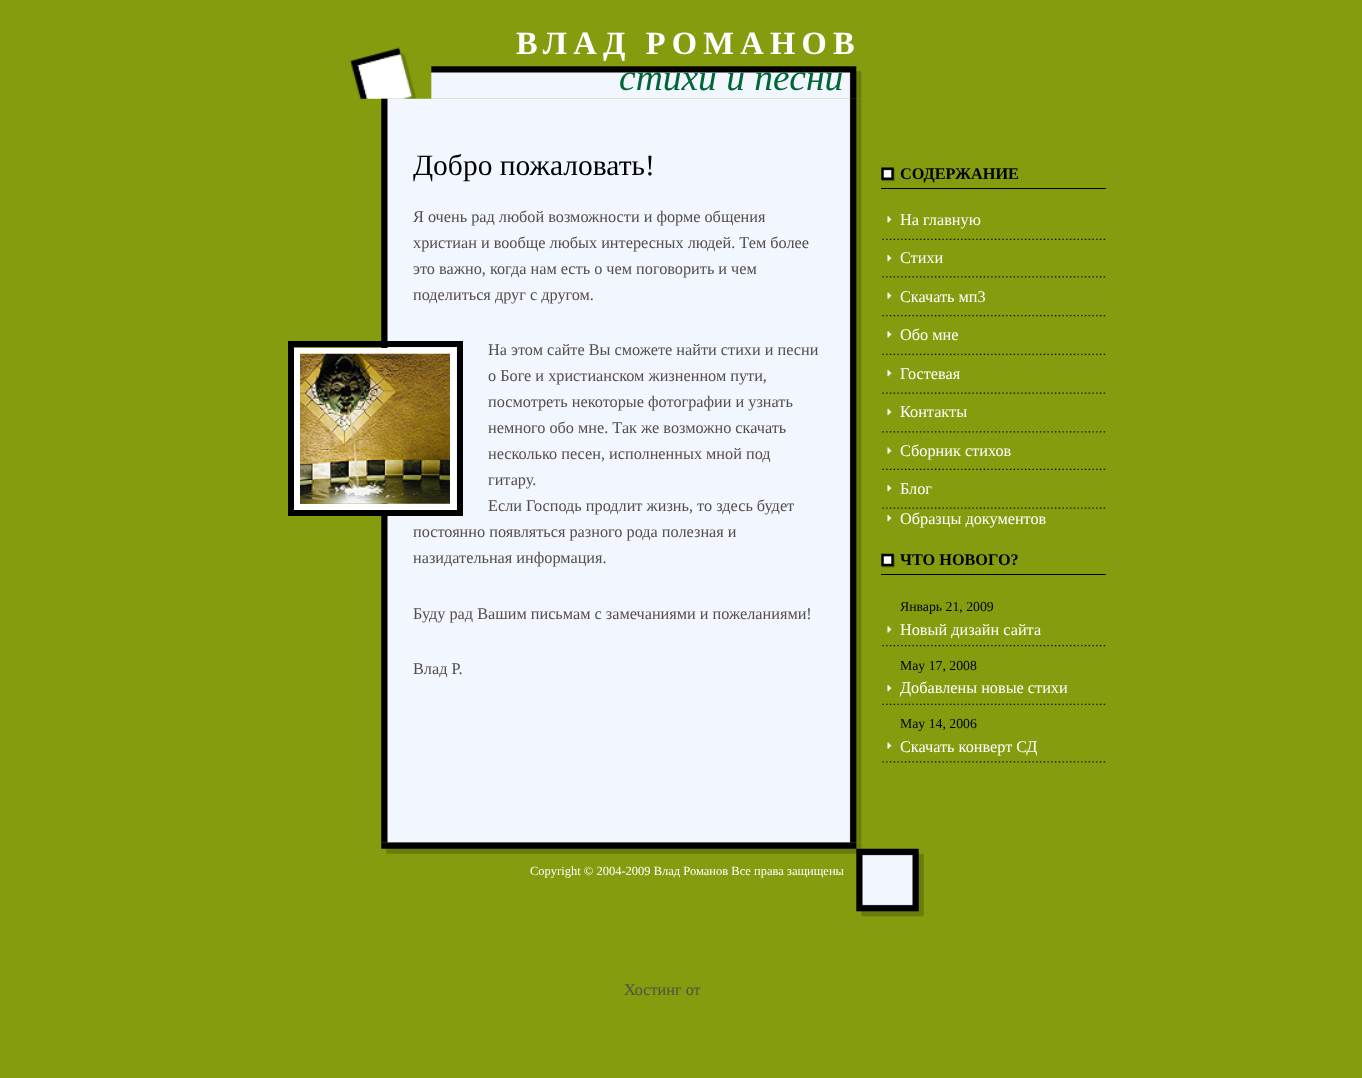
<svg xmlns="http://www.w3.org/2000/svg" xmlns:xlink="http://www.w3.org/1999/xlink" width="1362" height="1078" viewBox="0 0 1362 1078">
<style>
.cls-1{font:bold 32.5px Liberation Serif;letter-spacing:6.25px;fill:#ffffff}
.cls-2{font:italic 37.5px Liberation Serif;fill:#006633}
.cls-3{font:29.5px Liberation Serif;fill:#000000}
.cls-4{font:16.25px Liberation Serif;fill:#554d49}
.cls-5{font:bold 16.25px Liberation Serif;fill:#000000}
.cls-6{font:16.25px Liberation Serif;fill:#ffffff}
.cls-7{font:13.75px Liberation Serif;fill:#000000}
.cls-8{font:12.5px Liberation Serif;fill:#ffffff}
</style>
<rect width="100%" height="100%" fill="#859c0e"/>
<image xlink:href="image0.png" x="350" y="47" width="512" height="52"/>
<image xlink:href="image1.png" x="381" y="98" width="481" height="745"/>
<rect fill="none" stroke="#000000" stroke-width="6" x="291" y="344" width="169" height="169"/>
<rect fill="none" stroke="#ffffff" stroke-width="6" x="297" y="351" width="156" height="156"/>
<image xlink:href="image2.png" x="300" y="353" width="150" height="151"/>
<image xlink:href="image3.png" x="881" y="167" width="14" height="15"/>
<rect fill="#000000" x="881" y="188" width="225" height="1"/>
<image xlink:href="image4.png" x="882" y="238" width="224" height="2"/>
<image xlink:href="image5.png" x="887" y="216" width="5" height="7"/>
<image xlink:href="image6.png" x="882" y="276" width="224" height="2"/>
<image xlink:href="image7.png" x="887" y="255" width="5" height="7"/>
<image xlink:href="image8.png" x="882" y="315" width="224" height="2"/>
<image xlink:href="image9.png" x="887" y="292" width="5" height="7"/>
<image xlink:href="image4.png" x="882" y="353" width="224" height="2"/>
<image xlink:href="image5.png" x="887" y="331" width="5" height="7"/>
<image xlink:href="image10.png" x="882" y="392" width="224" height="2"/>
<image xlink:href="image7.png" x="887" y="370" width="5" height="7"/>
<image xlink:href="image6.png" x="882" y="431" width="224" height="2"/>
<image xlink:href="image11.png" x="887" y="408" width="5" height="7"/>
<image xlink:href="image4.png" x="882" y="468" width="224" height="2"/>
<image xlink:href="image12.png" x="887" y="447" width="5" height="7"/>
<image xlink:href="image10.png" x="882" y="507" width="224" height="2"/>
<image xlink:href="image7.png" x="887" y="485" width="5" height="7"/>
<image xlink:href="image7.png" x="887" y="515" width="5" height="7"/>
<image xlink:href="image13.png" x="881" y="553" width="14" height="15"/>
<rect fill="#000000" x="881" y="574" width="225" height="1"/>
<image xlink:href="image8.png" x="882" y="645" width="224" height="2"/>
<image xlink:href="image5.png" x="887" y="626" width="5" height="7"/>
<image xlink:href="image4.png" x="882" y="703" width="224" height="2"/>
<image xlink:href="image7.png" x="887" y="685" width="5" height="7"/>
<image xlink:href="image6.png" x="882" y="761" width="224" height="2"/>
<image xlink:href="image12.png" x="887" y="742" width="5" height="7"/>
<image xlink:href="image14.png" x="381" y="842" width="543" height="75"/>
<text class="cls-1" x="516" y="54">ВЛАД РОМАНОВ</text>
<text class="cls-2" x="619" y="90">стихи и песни</text>
<text class="cls-3" x="413" y="175">Добро пожаловать!</text>
<text class="cls-4"><tspan x="413" y="222">Я очень рад любой возможности и форме общения</tspan><tspan x="413" y="248">христиан и вообще любых интересных людей. Тем более</tspan><tspan x="413" y="274">это важно, когда нам есть о чем поговорить и чем</tspan><tspan x="413" y="300">поделиться друг с другом.</tspan></text>
<text class="cls-4"><tspan x="488" y="355">На этом сайте Вы сможете найти стихи и песни</tspan><tspan x="488" y="381">о Боге и христианском жизненном пути,</tspan><tspan x="488" y="407">посмотреть некоторые фотографии и узнать</tspan><tspan x="488" y="433">немного обо мне. Так же возможно скачать</tspan><tspan x="488" y="459">несколько песен, исполненных мной под</tspan><tspan x="488" y="485">гитару.</tspan><tspan x="488" y="511">Если Господь продлит жизнь, то здесь будет</tspan></text>
<text class="cls-4"><tspan x="413" y="537">постоянно появляться разного рода полезная и</tspan><tspan x="413" y="563">назидательная информация.</tspan></text>
<text class="cls-4" x="413" y="619">Буду рад Вашим письмам с замечаниями и пожеланиями!</text>
<text class="cls-4" x="413" y="674">Влад Р.</text>
<text class="cls-5" x="900" y="179">СОДЕРЖАНИЕ</text>
<text class="cls-6" x="900" y="225">На главную</text>
<text class="cls-6" x="900" y="263">Стихи</text>
<text class="cls-6" x="900" y="302">Скачать мп3</text>
<text class="cls-6" x="900" y="340">Обо мне</text>
<text class="cls-6" x="900" y="379">Гостевая</text>
<text class="cls-6" x="900" y="417">Контакты</text>
<text class="cls-6" x="900" y="456">Сборник стихов</text>
<text class="cls-6"><tspan x="900" y="494">Блог</tspan><tspan x="900" y="524">Образцы документов</tspan></text>
<text class="cls-5" x="900" y="565">ЧТО НОВОГО?</text>
<text class="cls-7" x="900" y="611">Январь 21, 2009</text>
<text class="cls-6" x="900" y="635">Новый дизайн сайта</text>
<text class="cls-7" x="900" y="670">May 17, 2008</text>
<text class="cls-6" x="900" y="693">Добавлены новые стихи</text>
<text class="cls-7" x="900" y="728">May 14, 2006</text>
<text class="cls-6" x="900" y="752">Скачать конверт СД</text>
<text class="cls-8" x="530" y="875">Copyright © 2004-2009 Влад Романов Все права защищены</text>
<text class="cls-4" x="624" y="995">Хостинг от</text>
</svg>
